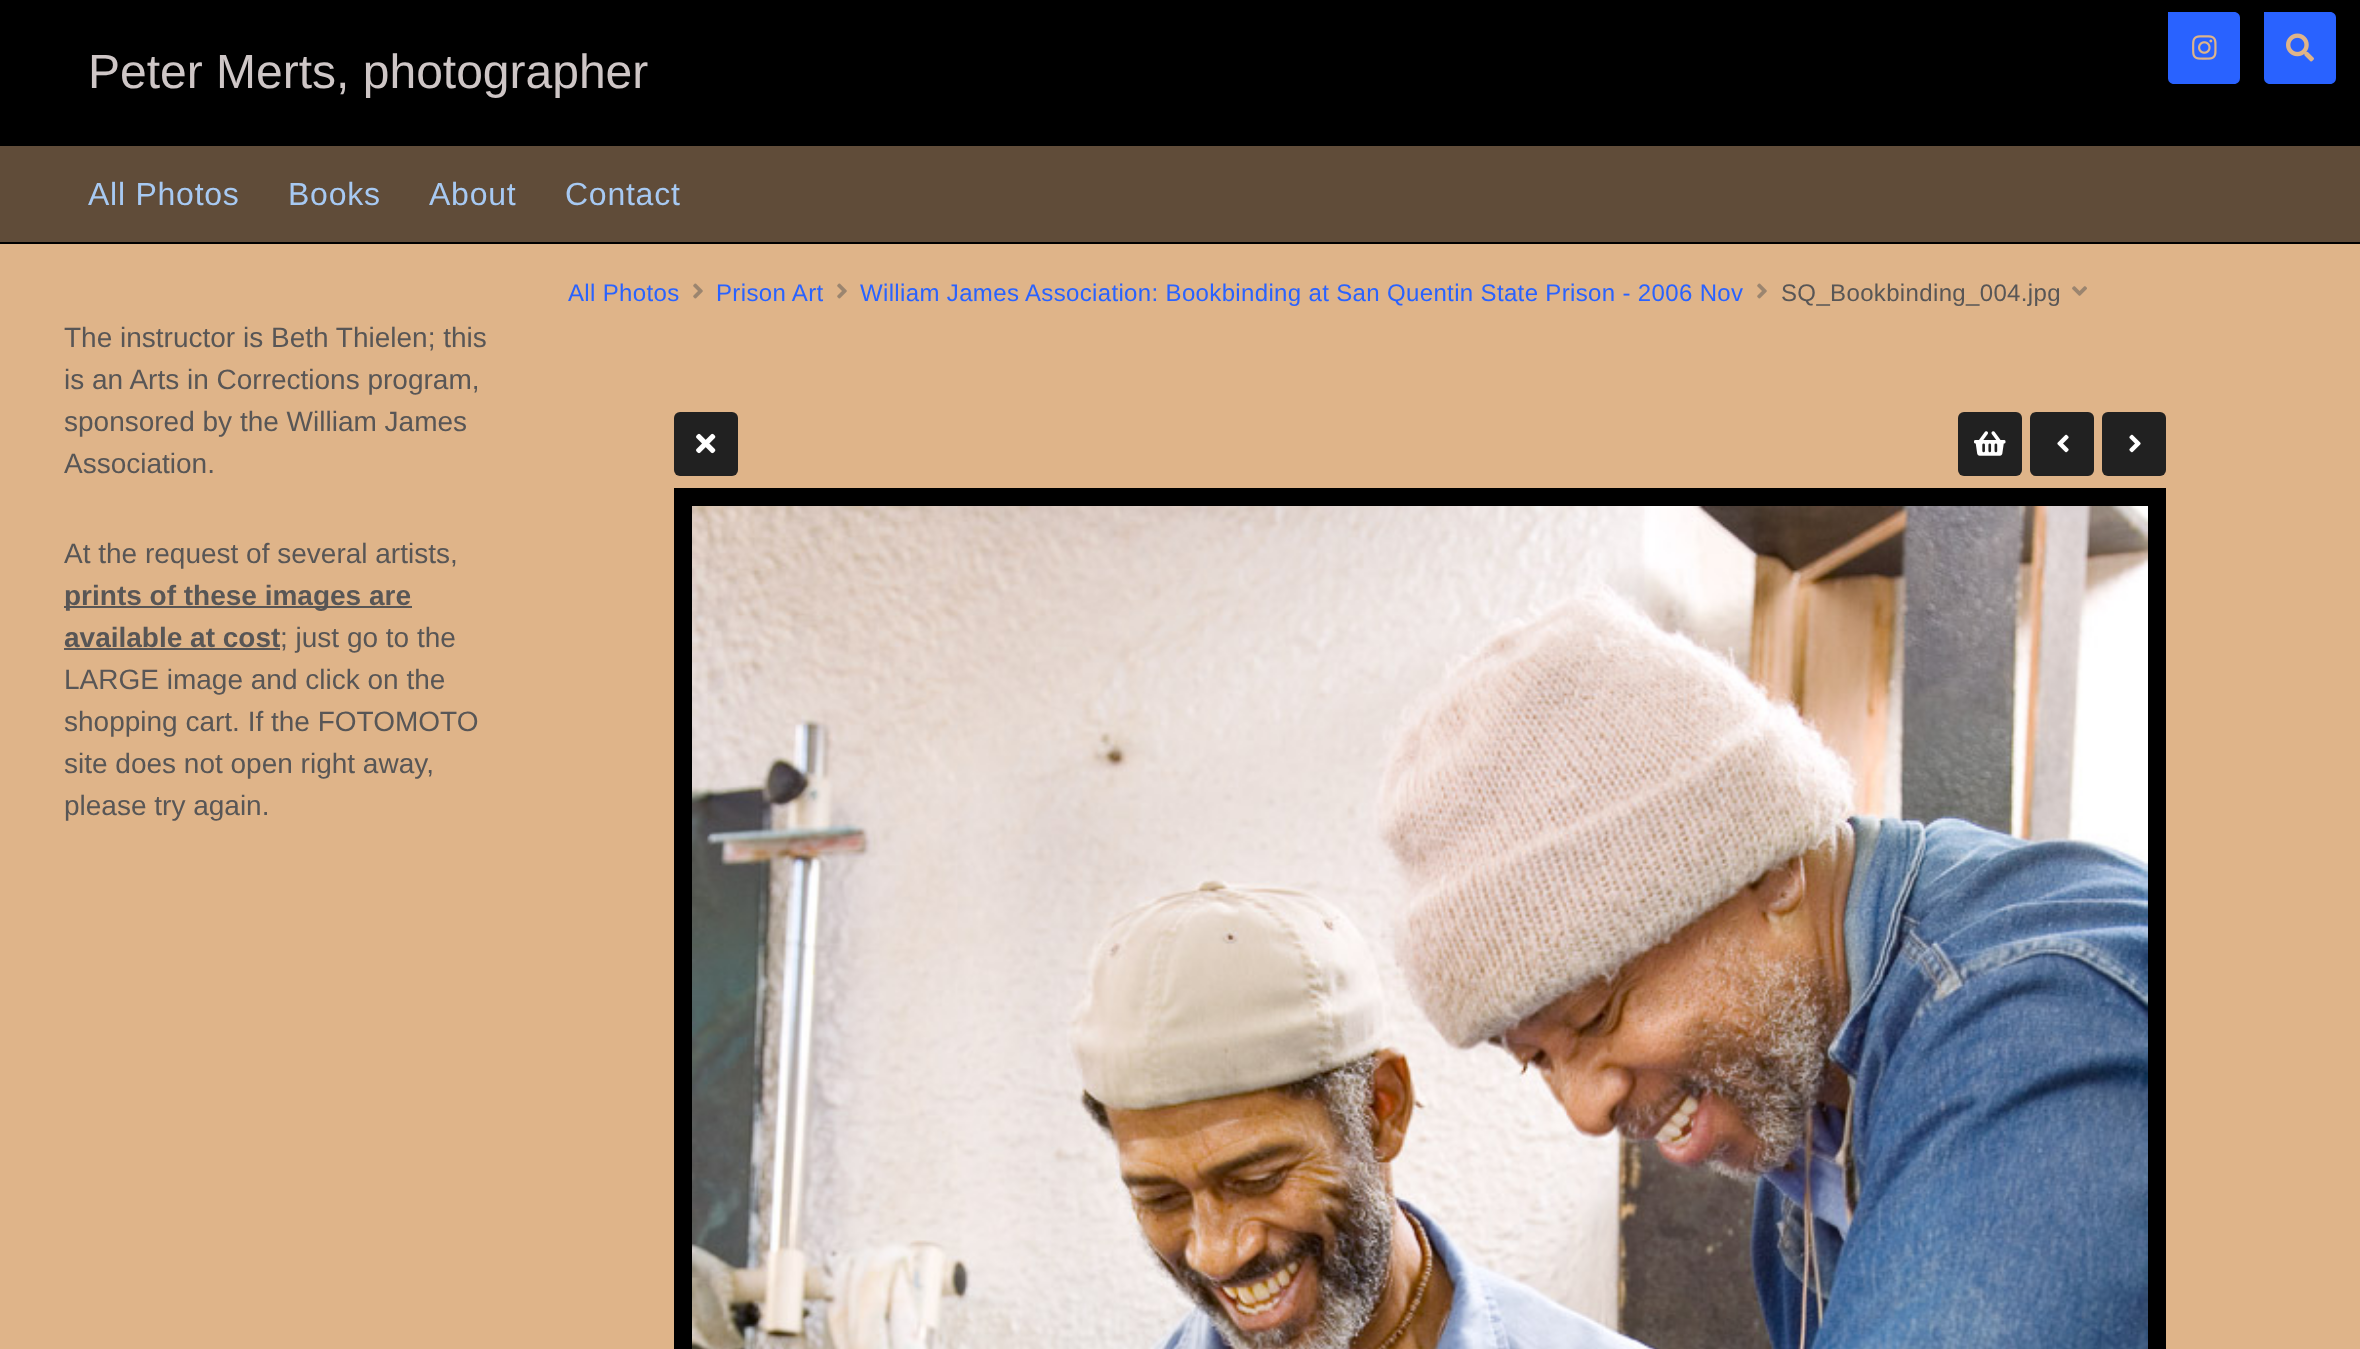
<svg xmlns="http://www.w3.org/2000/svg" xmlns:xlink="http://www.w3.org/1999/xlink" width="2360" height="1349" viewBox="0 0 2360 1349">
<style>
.cls-1{font:48px Liberation Sans;fill:#cec6c6}
.cls-2{font:32px Liberation Sans;letter-spacing:0.75px;fill:#a7c9f2}
.cls-3{font:24px Liberation Sans;letter-spacing:0.35px;fill:#2962ff}
.cls-4{font:24px Liberation Sans;letter-spacing:0.35px;fill:#585656}
.cls-5{font:28px Liberation Sans;fill:#585656}
.cls-6{font:bold 28px Liberation Sans;fill:#585656}
</style>
<rect width="100%" height="100%" fill="#dfb489"/>
<rect fill="#000000" x="0" y="0" width="2360" height="146"/>
<path fill="#2962ff" d="M2168 12H2234C2237.5 12 2240 14.5 2240 18V78C2240 81.5 2237.5 84 2234 84H2174C2170.5 84 2168 81.5 2168 78Z"/>
<image xlink:href="image0.png" x="2192" y="35" width="25" height="25"/>
<path fill="#2962ff" d="M2264 12H2330C2333.5 12 2336 14.5 2336 18V78C2336 81.5 2333.5 84 2330 84H2270C2266.5 84 2264 81.5 2264 78Z"/>
<image xlink:href="image1.png" x="2286" y="33" width="28" height="29"/>
<rect fill="#604c39" x="0" y="146" width="2360" height="96"/>
<rect fill="#000000" x="0" y="242" width="2360" height="2"/>
<image xlink:href="image2.png" x="693" y="283" width="10" height="16"/>
<image xlink:href="image2.png" x="837" y="283" width="10" height="16"/>
<image xlink:href="image2.png" x="1757" y="283" width="10" height="16"/>
<image xlink:href="image3.png" x="2072" y="286" width="15" height="10"/>
<rect fill="#212121" x="674" y="412" width="64" height="64" rx="6"/>
<image xlink:href="image4.png" x="696" y="433" width="20" height="21"/>
<rect fill="#212121" x="1958" y="412" width="64" height="64" rx="6"/>
<image xlink:href="image5.png" x="1974" y="431" width="32" height="25"/>
<rect fill="#212121" x="2030" y="412" width="64" height="64" rx="6"/>
<image xlink:href="image6.png" x="2057" y="434" width="12" height="19"/>
<rect fill="#212121" x="2102" y="412" width="64" height="64" rx="6"/>
<image xlink:href="image7.png" x="2129" y="434" width="12" height="19"/>
<rect fill="none" stroke="#000000" stroke-width="18" x="683" y="497" width="1474" height="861"/>
<image xlink:href="image8.png" x="692" y="506" width="1456" height="843"/>
<rect fill="#585656" x="64" y="606" width="348" height="2"/>
<rect fill="#585656" x="64" y="648" width="216" height="2"/>
<text class="cls-1" x="88" y="88">Peter Merts, photographer</text>
<text class="cls-2" x="88" y="205">All Photos</text>
<text class="cls-2" x="288" y="205">Books</text>
<text class="cls-2" x="429" y="205">About</text>
<text class="cls-2" x="565" y="205">Contact</text>
<text class="cls-3" x="568" y="301">All Photos</text>
<text class="cls-3" x="716" y="301">Prison Art</text>
<text class="cls-3" x="860" y="301">William James Association: Bookbinding at San Quentin State Prison - 2006 Nov</text>
<text class="cls-4" x="1781" y="301">SQ_Bookbinding_004.jpg</text>
<text class="cls-5"><tspan x="64" y="347">The instructor is Beth Thielen; this</tspan><tspan x="64" y="389">is an Arts in Corrections program,</tspan><tspan x="64" y="431">sponsored by the William James</tspan><tspan x="64" y="473">Association.</tspan></text>
<text class="cls-5" x="64" y="563">At the request of several artists,</text>
<text class="cls-6"><tspan x="64" y="605">prints of these images are</tspan><tspan x="64" y="647">available at cost</tspan></text>
<text class="cls-5" x="280" y="647">; just go to the</text>
<text class="cls-5"><tspan x="64" y="689">LARGE image and click on the</tspan><tspan x="64" y="731">shopping cart. If the FOTOMOTO</tspan><tspan x="64" y="773">site does not open right away,</tspan><tspan x="64" y="815">please try again.</tspan></text>
</svg>
